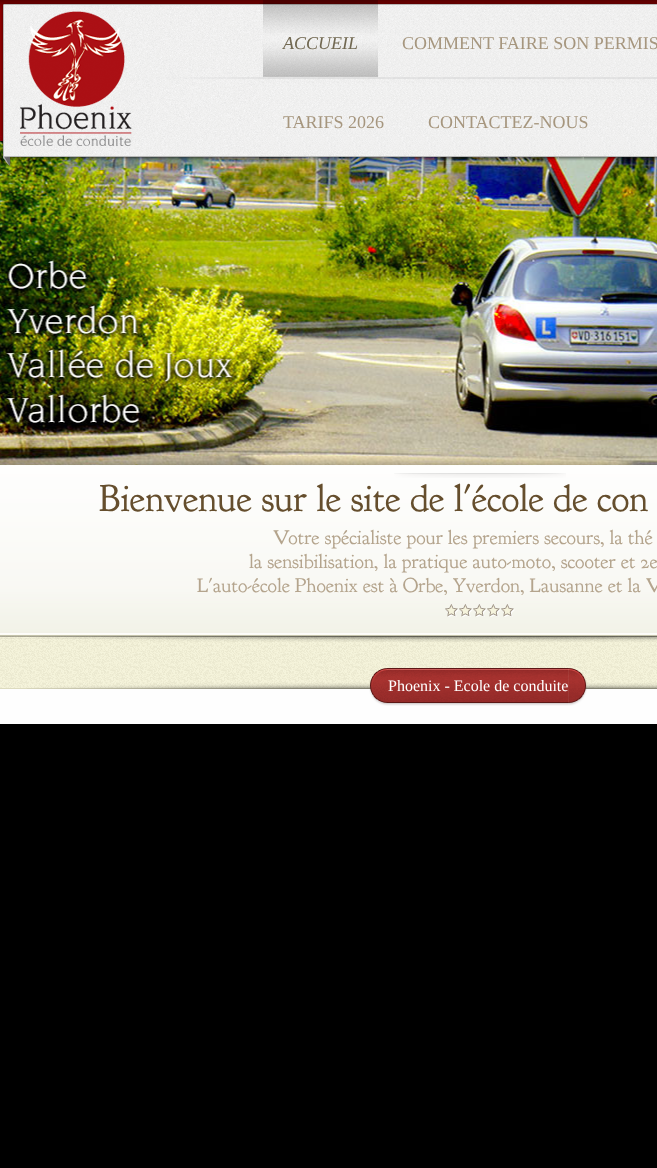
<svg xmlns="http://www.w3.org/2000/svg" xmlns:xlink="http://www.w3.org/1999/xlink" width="657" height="1168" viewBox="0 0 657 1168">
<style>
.cls-1{font:italic 18px Liberation Serif;fill:#716851}
.cls-2{font:18px Liberation Serif;fill:#a6967e}
.cls-3{font:38px 'Goudy Bookletter 1911';fill:#654e2d}
.cls-4{font:20px 'Goudy Bookletter 1911';fill:#b4a48d}
.cls-5{font:16px Liberation Serif;fill:#ffffff}
</style>
<rect width="100%" height="100%" fill="#000000"/>
<image xlink:href="image0.png" x="0" y="0" width="657" height="465"/>
<image xlink:href="image1.png" x="0" y="0" width="657" height="10"/>
<image xlink:href="image2.png" x="0" y="456" width="657" height="9"/>
<image xlink:href="image3.png" x="0" y="2" width="291" height="165"/>
<image xlink:href="image4.png" x="259" y="2" width="398" height="159"/>
<image xlink:href="image5.png" x="20" y="11" width="112" height="135"/>
<image xlink:href="image6.png" x="263" y="0" width="115" height="77"/>
<image xlink:href="image8.png" x="0" y="465" width="657" height="223"/>
<image xlink:href="image9.png" x="0" y="465" width="657" height="174"/>
<image xlink:href="image7.png" x="394" y="473" width="172" height="5"/>
<rect fill="#dddbbf" x="0" y="688" width="657" height="1"/>
<image xlink:href="image10.png" x="445" y="604" width="70" height="13"/>
<image xlink:href="image11.png" x="29" y="636" width="628" height="6"/>
<image xlink:href="image14.png" x="27" y="683" width="630" height="6"/>
<rect fill="#fefefe" x="0" y="689" width="657" height="35"/>
<image xlink:href="image12.png" x="568" y="668" width="19" height="38"/>
<image xlink:href="image13.png" x="369" y="668" width="199" height="38"/>
<text class="cls-1" x="283" y="49">ACCUEIL</text>
<text class="cls-2" x="402" y="49">COMMENT FAIRE SON PERMIS</text>
<text class="cls-2" x="283" y="128">TARIFS 2026</text>
<text class="cls-2" x="428" y="128">CONTACTEZ-NOUS</text>
<text class="cls-3" x="99" y="511">Bienvenue sur le site de l'école de con</text>
<text class="cls-4" x="273" y="544">Votre spécialiste pour les premiers secours, la thé</text>
<text class="cls-4" x="249" y="568">la sensibilisation, la pratique auto-moto, scooter et 2e</text>
<text class="cls-4" x="197" y="592">L'auto-école Phoenix est à Orbe, Yverdon, Lausanne et la V</text>
<text class="cls-5" x="388" y="691">Phoenix - Ecole de conduite</text>
</svg>
